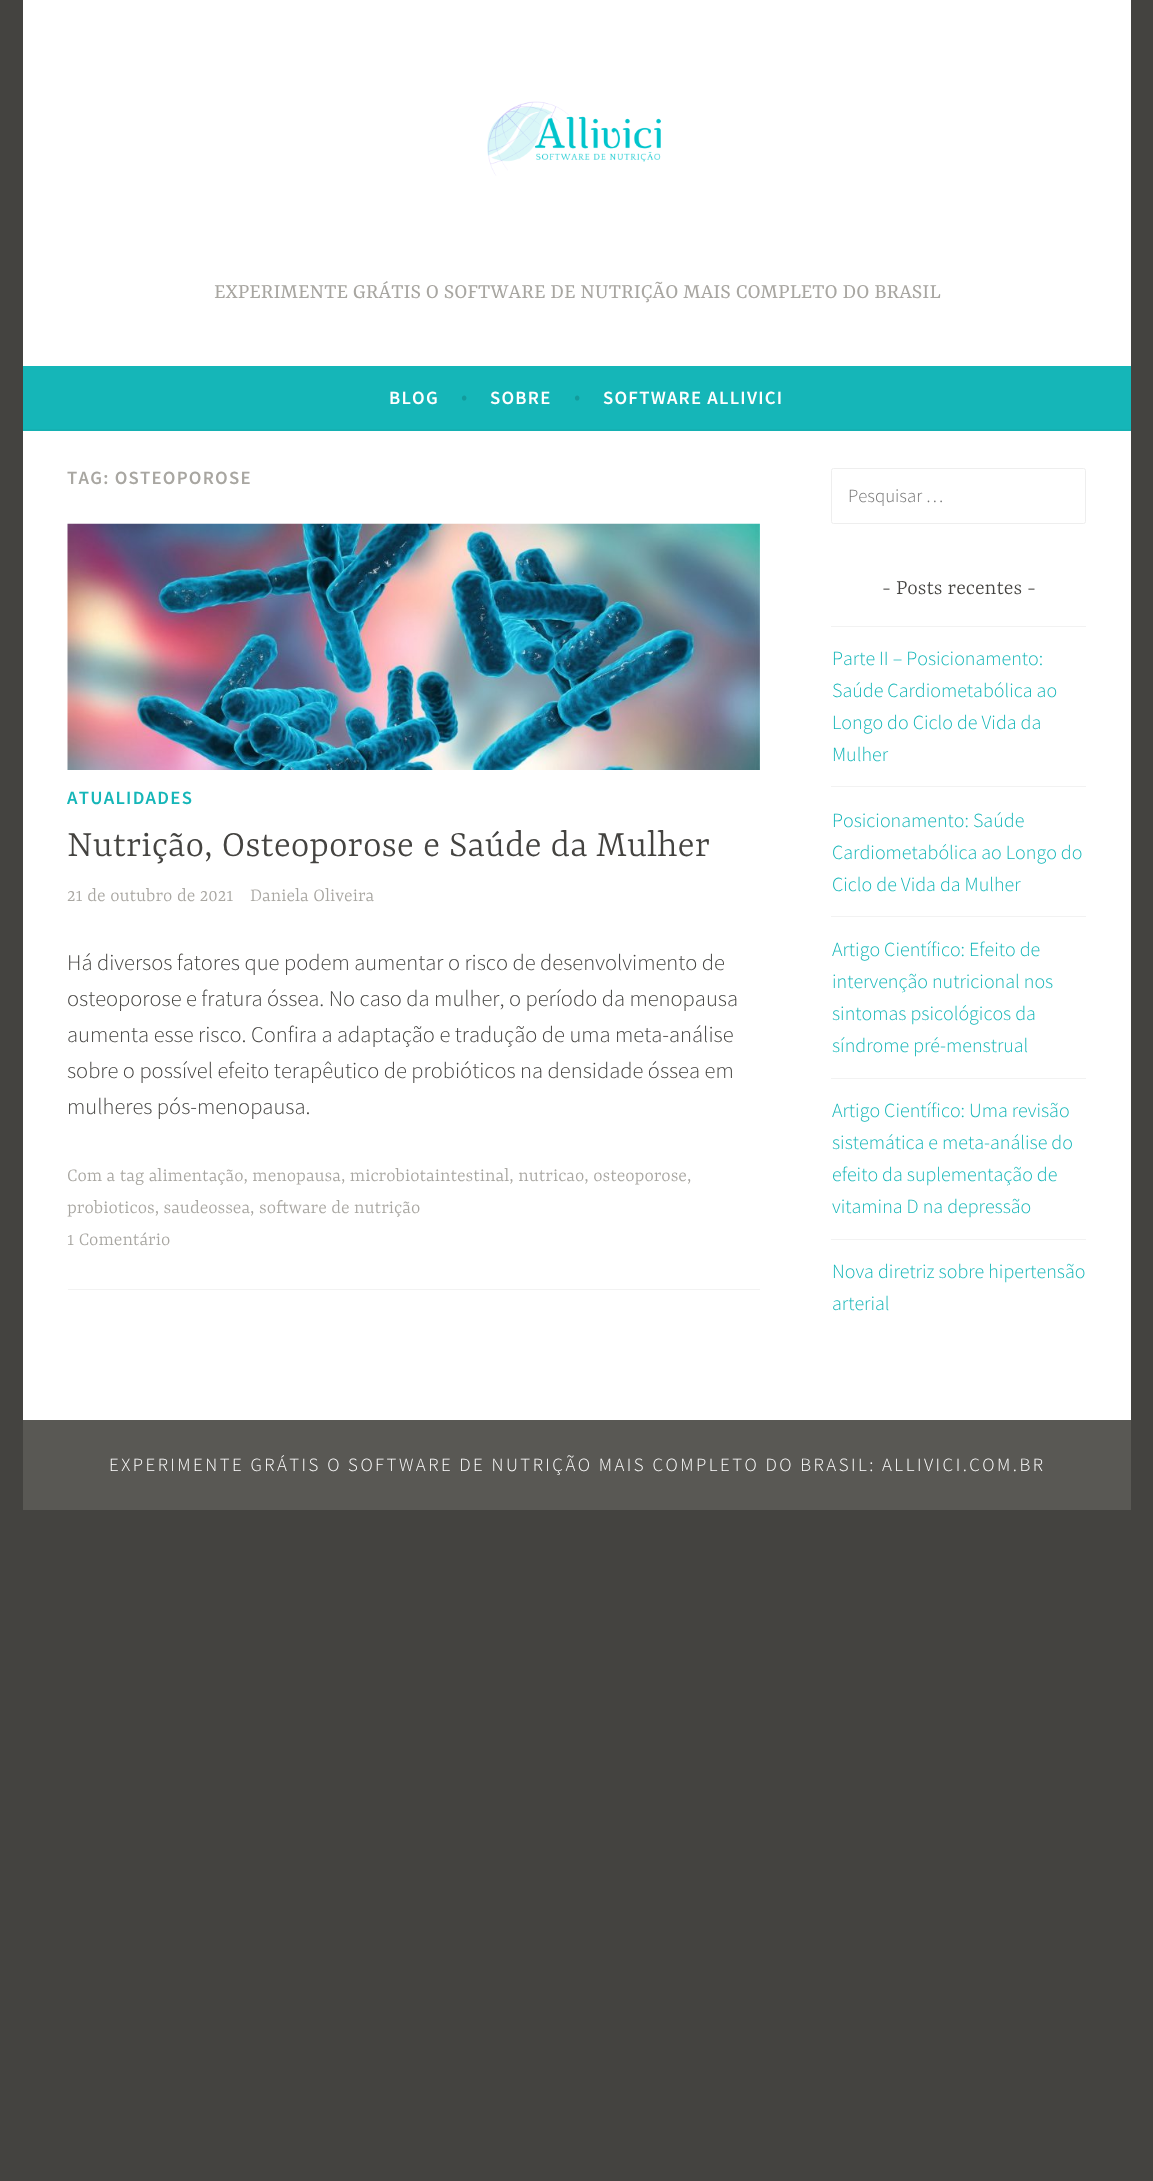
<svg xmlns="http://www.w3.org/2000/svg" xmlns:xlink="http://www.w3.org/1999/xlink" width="1153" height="2181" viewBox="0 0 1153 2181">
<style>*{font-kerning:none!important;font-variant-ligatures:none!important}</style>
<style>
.cls-1{font:22.5px Yrsa;fill:#a8a6a1}
.cls-2{font:600 18.75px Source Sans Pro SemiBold;letter-spacing:1.25px;fill:#ffffff}
.cls-3{font:300 22.5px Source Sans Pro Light;fill:#129b9c}
.cls-4{font:600 18.75px Source Sans Pro SemiBold;letter-spacing:1.25px;fill:#a8a6a1}
.cls-5{font:600 18.75px Source Sans Pro SemiBold;letter-spacing:1.25px;fill:#15b6b8}
.cls-6{font:300 40px Yrsa;fill:#444340}
.cls-7{font:300 20px Yrsa;fill:#a8a6a1}
.cls-8{font:300 22.5px Source Sans Pro Light;fill:#444340}
.cls-9{font:300 18.75px Source Sans Pro Light;fill:#757575}
.cls-10{font:300 22.5px Yrsa;fill:#444340}
.cls-11{font:300 20px Source Sans Pro Light;fill:#15b6b8}
.cls-12{font:300 18.75px Source Sans Pro Light;letter-spacing:2.5px;fill:#ffffff}
</style>
<rect width="100%" height="100%" fill="#444340"/>
<rect fill="#ffffff" x="23" y="0" width="1108" height="366"/>
<image xlink:href="image0.png" x="487" y="101" width="174" height="75"/>
<rect fill="#15b6b8" x="23" y="366" width="1108" height="63"/>
<rect fill="#14b1b2" x="23" y="429" width="1108" height="2"/>
<rect fill="#ffffff" x="23" y="431" width="1108" height="989"/>
<image xlink:href="image1.png" x="67" y="523" width="693" height="247"/>
<rect fill="#f2f2f2" x="68" y="1289" width="692" height="1"/>
<rect fill="none" stroke="#eeeeee" x="831.5" y="468.5" width="254" height="55" rx="2"/>
<rect fill="#f2f2f2" x="831" y="626" width="255" height="1"/>
<rect fill="#f2f2f2" x="831" y="786" width="255" height="1"/>
<rect fill="#f2f2f2" x="831" y="916" width="255" height="1"/>
<rect fill="#f2f2f2" x="831" y="1078" width="255" height="1"/>
<rect fill="#f2f2f2" x="831" y="1239" width="255" height="1"/>
<rect fill="#595854" x="23" y="1420" width="1108" height="90"/>
<text class="cls-1" x="214" y="298">EXPERIMENTE GRÁTIS O SOFTWARE DE NUTRIÇÃO MAIS COMPLETO DO BRASIL</text>
<text class="cls-2" x="389" y="404">BLOG</text>
<text class="cls-3" x="461" y="404">•</text>
<text class="cls-2" x="490" y="404">SOBRE</text>
<text class="cls-3" x="574" y="404">•</text>
<text class="cls-2" x="603" y="404">SOFTWARE ALLIVICI</text>
<text class="cls-4" x="67" y="484">TAG: OSTEOPOROSE</text>
<text class="cls-5" x="67" y="804">ATUALIDADES</text>
<text class="cls-6" x="67" y="856">Nutrição, Osteoporose e Saúde da Mulher</text>
<text class="cls-7" x="67" y="901">21 de outubro de 2021</text>
<text class="cls-7" x="250" y="901">Daniela Oliveira</text>
<text class="cls-8"><tspan x="67" y="970">Há diversos fatores que podem aumentar o risco de desenvolvimento de</tspan><tspan x="67" y="1006">osteoporose e fratura óssea. No caso da mulher, o período da menopausa</tspan><tspan x="67" y="1042">aumenta esse risco. Confira a adaptação e tradução de uma meta-análise</tspan><tspan x="67" y="1078">sobre o possível efeito terapêutico de probióticos na densidade óssea em</tspan><tspan x="67" y="1114">mulheres pós-menopausa.</tspan></text>
<text class="cls-7"><tspan x="67" y="1181">Com a tag alimentação, menopausa, microbiotaintestinal, nutricao, osteoporose,</tspan><tspan x="67" y="1213">probioticos, saudeossea, software de nutrição</tspan><tspan x="67" y="1245">1 Comentário</tspan></text>
<text class="cls-9" x="848" y="502">Pesquisar …</text>
<text class="cls-10" x="882" y="594">- Posts recentes -</text>
<text class="cls-11"><tspan x="832" y="665">Parte II – Posicionamento:</tspan><tspan x="832" y="697">Saúde Cardiometabólica ao</tspan><tspan x="832" y="729">Longo do Ciclo de Vida da</tspan><tspan x="832" y="761">Mulher</tspan></text>
<text class="cls-11"><tspan x="832" y="827">Posicionamento: Saúde</tspan><tspan x="832" y="859">Cardiometabólica ao Longo do</tspan><tspan x="832" y="891">Ciclo de Vida da Mulher</tspan></text>
<text class="cls-11"><tspan x="832" y="956">Artigo Científico: Efeito de</tspan><tspan x="832" y="988">intervenção nutricional nos</tspan><tspan x="832" y="1020">sintomas psicológicos da</tspan><tspan x="832" y="1052">síndrome pré-menstrual</tspan></text>
<text class="cls-11"><tspan x="832" y="1117">Artigo Científico: Uma revisão</tspan><tspan x="832" y="1149">sistemática e meta-análise do</tspan><tspan x="832" y="1181">efeito da suplementação de</tspan><tspan x="832" y="1213">vitamina D na depressão</tspan></text>
<text class="cls-11"><tspan x="832" y="1278">Nova diretriz sobre hipertensão</tspan><tspan x="832" y="1310">arterial</tspan></text>
<text class="cls-12" x="109" y="1471">EXPERIMENTE GRÁTIS O SOFTWARE DE NUTRIÇÃO MAIS COMPLETO DO BRASIL: ALLIVICI.COM.BR</text>
</svg>
